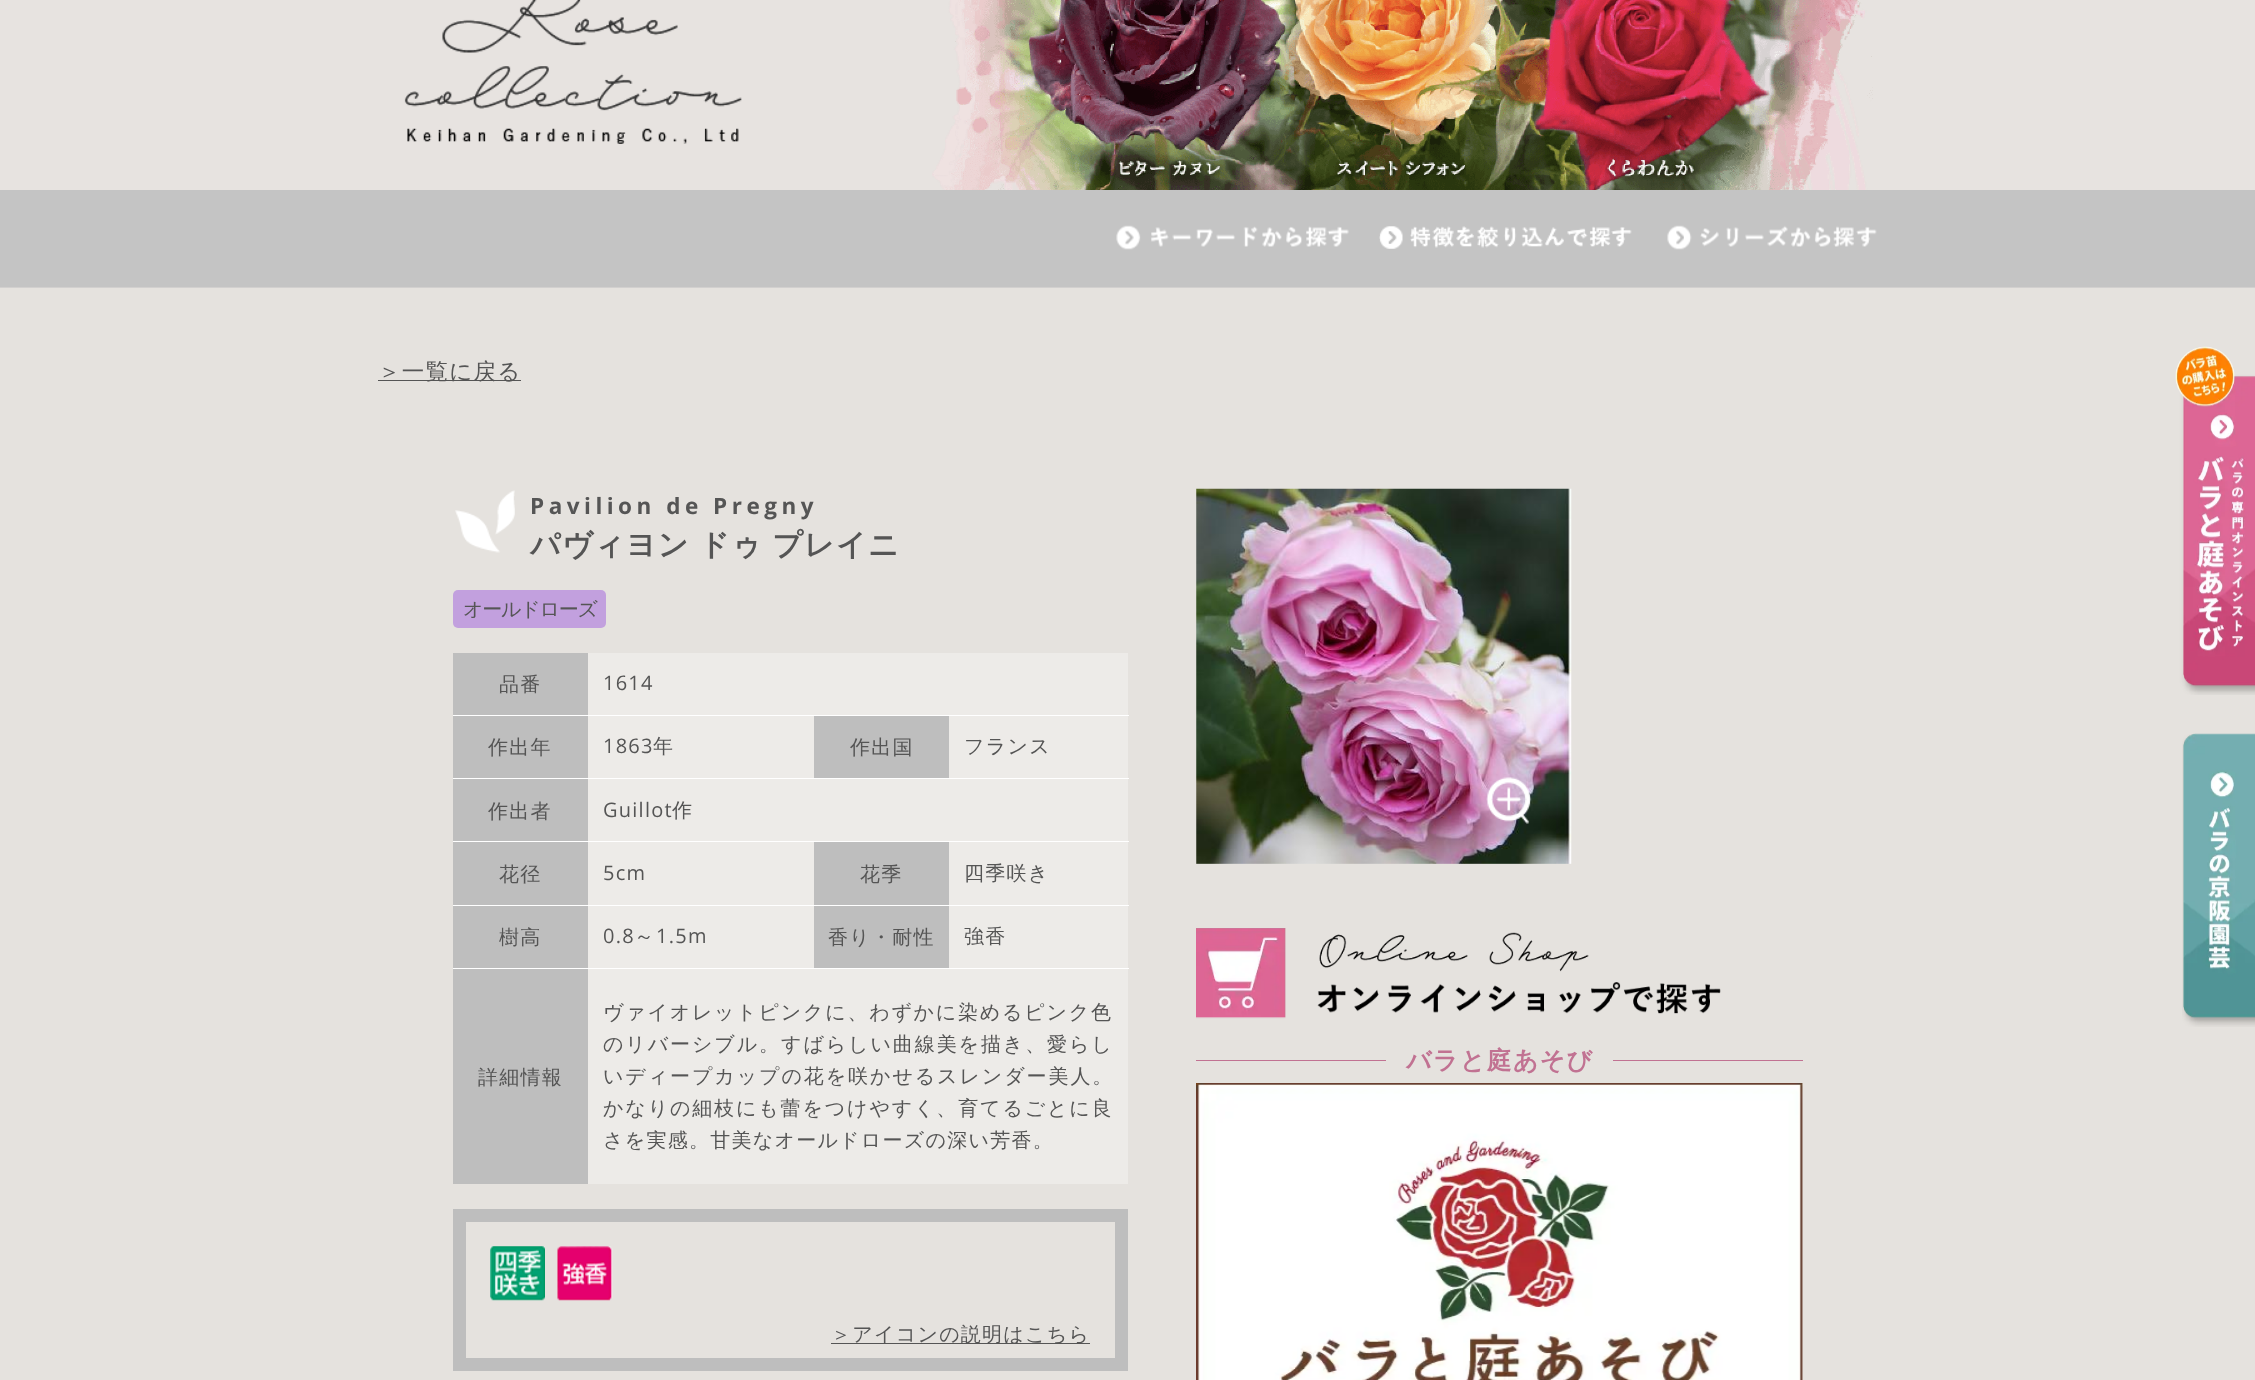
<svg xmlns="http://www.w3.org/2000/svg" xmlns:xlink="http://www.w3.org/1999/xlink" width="2255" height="1380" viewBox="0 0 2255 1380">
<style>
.cls-1{font:500 22.5px WenQuanYi Zen Hei;letter-spacing:1.25px;fill:#555555}
.cls-2{font:bold 22.5px Open Sans;letter-spacing:4.5px;fill:#555555}
.cls-3{font:bold 30px WenQuanYi Zen Hei;letter-spacing:1.25px;fill:#555555}
.cls-4{font:500 20px WenQuanYi Zen Hei;letter-spacing:-1.25px;fill:#555555}
.cls-5{font:500 20px WenQuanYi Zen Hei;letter-spacing:1.25px;fill:#555555}
.cls-6{font:20px Open Sans;letter-spacing:1.25px;fill:#555555}
.cls-7{font:500 20px WenQuanYi Zen Hei;letter-spacing:1.75px;fill:#555555}
.cls-8{font:500 20px WenQuanYi Zen Hei;letter-spacing:1.9px;fill:#555555}
.cls-9{font:500 20px WenQuanYi Zen Hei;letter-spacing:1.85px;fill:#555555}
.cls-10{font:bold 25px WenQuanYi Zen Hei;letter-spacing:1.25px;fill:#c17292}
</style>
<rect width="100%" height="100%" fill="#e1ddda"/>
<image xlink:href="image0.png" x="0" y="0" width="2255" height="288"/>
<image xlink:href="image1.png" x="404" y="0" width="338" height="144"/>
<image xlink:href="image2.png" x="932" y="0" width="941" height="190"/>
<image xlink:href="image3.png" x="1116" y="225" width="233" height="25"/>
<image xlink:href="image4.png" x="1379" y="226" width="253" height="23"/>
<image xlink:href="image5.png" x="1667" y="225" width="210" height="25"/>
<rect fill="#e5e2de" x="0" y="288" width="2255" height="1092"/>
<rect fill="#555555" x="378" y="380" width="143" height="1"/>
<image xlink:href="image6.png" x="455" y="490" width="60" height="63"/>
<rect fill="#c2a0de" x="453" y="590" width="153" height="38" rx="5"/>
<rect fill="#ffffff" x="453" y="715" width="676" height="1"/>
<rect fill="#bebebe" x="453" y="653" width="135" height="62"/>
<rect fill="#edebe8" x="588" y="653" width="540" height="62"/>
<rect fill="#ffffff" x="453" y="778" width="676" height="1"/>
<rect fill="#bebebe" x="453" y="716" width="135" height="62"/>
<rect fill="#edebe8" x="588" y="716" width="226" height="62"/>
<rect fill="#bebebe" x="814" y="716" width="135" height="62"/>
<rect fill="#edebe8" x="949" y="716" width="179" height="62"/>
<rect fill="#ffffff" x="453" y="841" width="676" height="1"/>
<rect fill="#bebebe" x="453" y="779" width="135" height="62"/>
<rect fill="#edebe8" x="588" y="779" width="540" height="62"/>
<rect fill="#ffffff" x="453" y="905" width="676" height="1"/>
<rect fill="#bebebe" x="453" y="842" width="135" height="63"/>
<rect fill="#edebe8" x="588" y="842" width="226" height="63"/>
<rect fill="#bebebe" x="814" y="842" width="135" height="63"/>
<rect fill="#edebe8" x="949" y="842" width="179" height="63"/>
<rect fill="#ffffff" x="453" y="968" width="676" height="1"/>
<rect fill="#bebebe" x="453" y="906" width="135" height="62"/>
<rect fill="#edebe8" x="588" y="906" width="226" height="62"/>
<rect fill="#bebebe" x="814" y="906" width="135" height="62"/>
<rect fill="#edebe8" x="949" y="906" width="179" height="62"/>
<rect fill="#bebebe" x="453" y="969" width="135" height="215"/>
<rect fill="#edebe8" x="588" y="969" width="540" height="215"/>
<rect fill="none" stroke="#bebebe" stroke-width="13" x="459.5" y="1215.5" width="662" height="149"/>
<image xlink:href="image7.png" x="490" y="1246" width="55" height="55"/>
<image xlink:href="image8.png" x="557" y="1246" width="56" height="55"/>
<rect fill="#555555" x="831" y="1343" width="259" height="1"/>
<image xlink:href="image9.png" x="1196" y="488" width="376" height="376"/>
<image xlink:href="image10.png" x="1486" y="777" width="46" height="47"/>
<image xlink:href="image11.png" x="1196" y="928" width="525" height="91"/>
<rect fill="#c17292" x="1196" y="1060" width="190" height="1"/>
<rect fill="#c17292" x="1613" y="1060" width="190" height="1"/>
<image xlink:href="image12.png" x="1196" y="1083" width="607" height="297"/>
<image xlink:href="image13.png" x="2175" y="346" width="80" height="349"/>
<image xlink:href="image14.png" x="2182" y="733" width="73" height="294"/>
<text class="cls-1" x="378" y="379">＞一覧に戻る</text>
<text class="cls-2" x="530" y="514">Pavilion de Pregny</text>
<text class="cls-3" x="530" y="555" word-spacing="-1">パヴィヨン ドゥ プレイニ</text>
<text class="cls-4" x="463" y="616">オールドローズ</text>
<text class="cls-5" x="499" y="691">品番</text>
<text class="cls-6" x="603" y="690">1614</text>
<text class="cls-5" x="488" y="754">作出年</text>
<text class="cls-6" x="603" y="753">1863</text>
<text class="cls-5" x="653" y="753">年</text>
<text class="cls-5" x="850" y="754">作出国</text>
<text class="cls-5" x="964" y="753">フランス</text>
<text class="cls-5" x="488" y="818">作出者</text>
<text class="cls-6" x="603" y="817">Guillot</text>
<text class="cls-5" x="672" y="817">作</text>
<text class="cls-5" x="499" y="881">花径</text>
<text class="cls-6" x="603" y="880">5cm</text>
<text class="cls-5" x="860" y="881">花季</text>
<text class="cls-5" x="964" y="880">四季咲き</text>
<text class="cls-5" x="499" y="944">樹高</text>
<text class="cls-6" x="603" y="943">0.8</text>
<text class="cls-5" x="634" y="943">～</text>
<text class="cls-6" x="656" y="943">1.5m</text>
<text class="cls-5" x="828" y="944">香り・耐性</text>
<text class="cls-5" x="964" y="943">強香</text>
<text class="cls-5" x="478" y="1084">詳細情報</text>
<text class="cls-7" x="603" y="1019">ヴァイオレットピンクに、わずかに染めるピンク色</text>
<text class="cls-8"><tspan x="603" y="1051">のリバーシブル。すばらしい曲線美を描き、愛らし</tspan><tspan x="603" y="1083">いディープカップの花を咲かせるスレンダー美人。</tspan></text>
<text class="cls-9" x="603" y="1115">かなりの細枝にも蕾をつけやすく、育てるごとに良</text>
<text class="cls-5" x="603" y="1147">さを実感。甘美なオールドローズの深い芳香。</text>
<text class="cls-5" x="831" y="1341">＞アイコンの説明はこちら</text>
<text class="cls-10" x="1406" y="1069">バラと庭あそび</text>
</svg>
